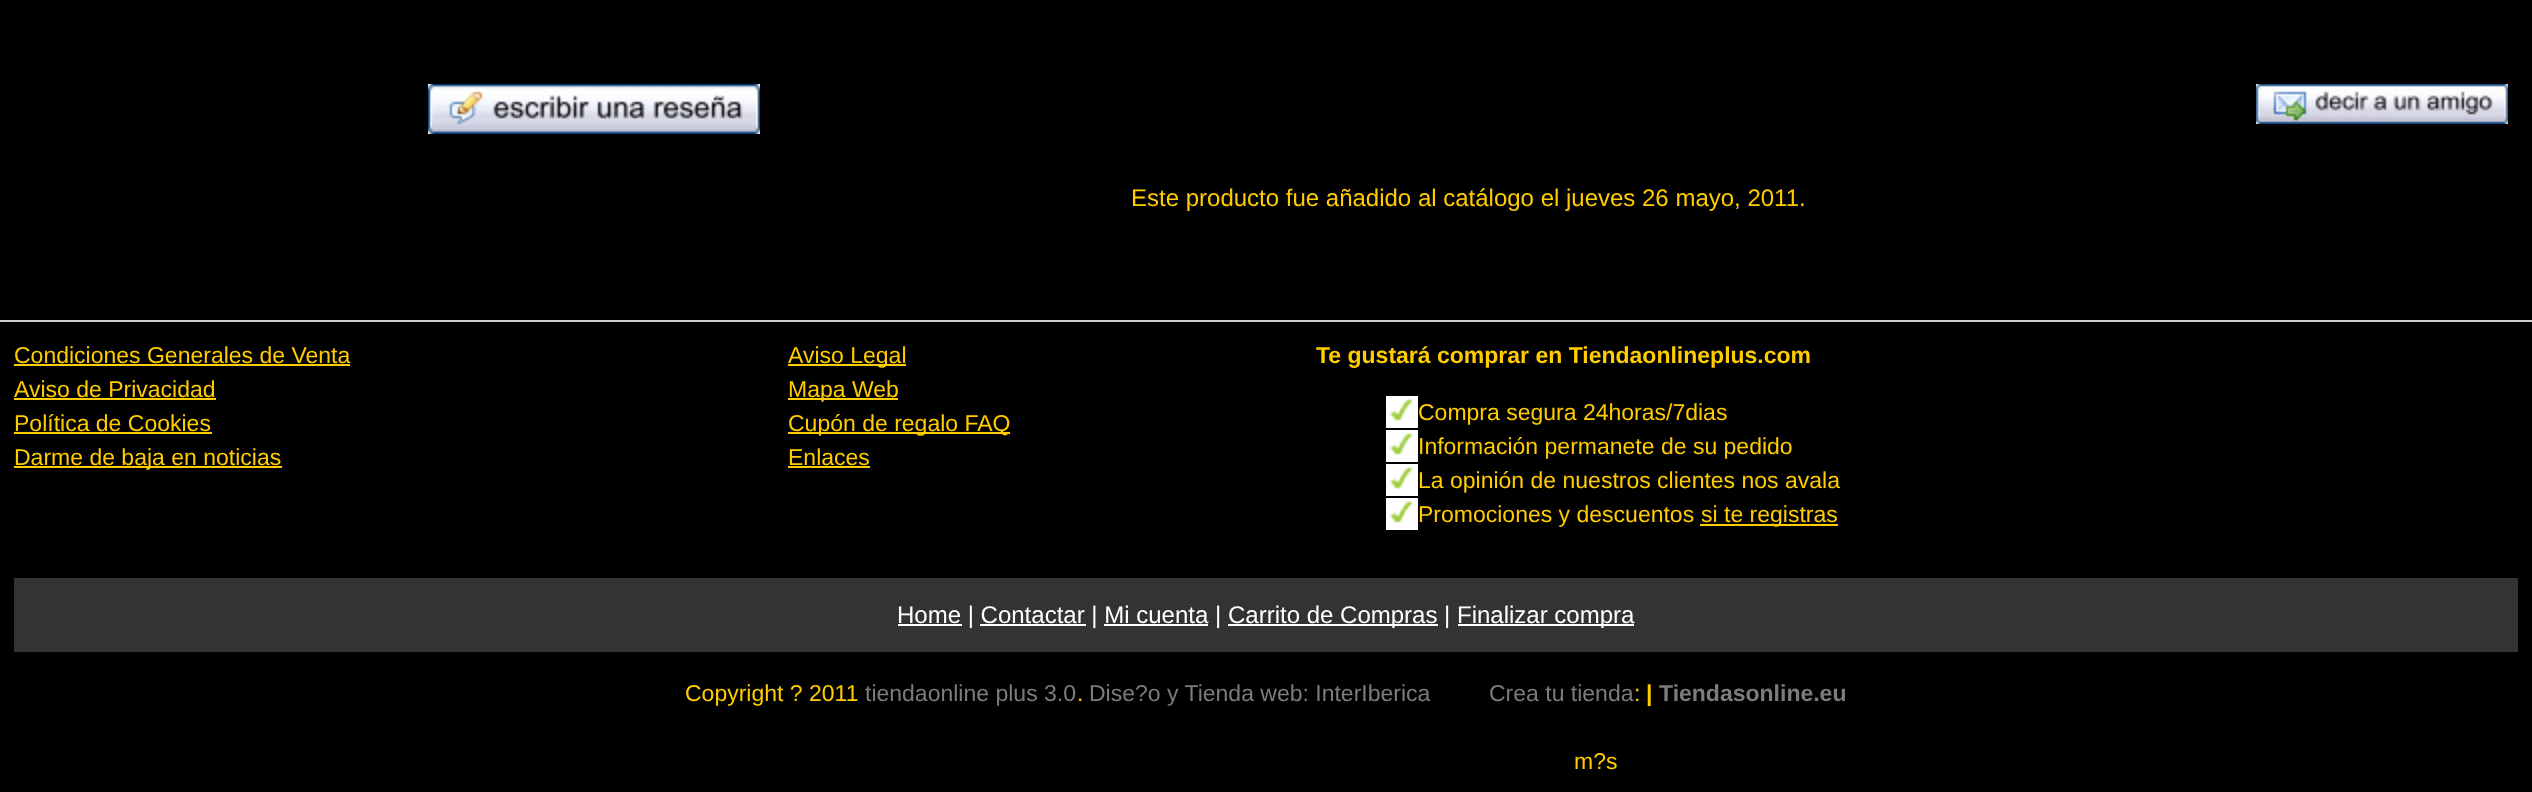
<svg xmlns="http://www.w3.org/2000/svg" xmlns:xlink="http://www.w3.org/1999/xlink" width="2532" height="792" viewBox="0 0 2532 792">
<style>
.cls-1{font:24px Liberation Sans;fill:#ffcc00}
.cls-2{font:23px Liberation Sans;fill:#ffcc00}
.cls-3{font:bold 23px Liberation Sans;fill:#ffcc00}
.cls-4{font:24px Liberation Sans;fill:#ffffff}
.cls-5{font:23px Liberation Sans;fill:#7c7c7c}
.cls-6{font:bold 23px Liberation Sans;fill:#7c7c7c}
</style>
<rect width="100%" height="100%" fill="#000000"/>
<image xlink:href="image0.png" x="428" y="84" width="332" height="50"/>
<image xlink:href="image1.png" x="2256" y="84" width="252" height="40"/>
<rect fill="#cecece" x="0" y="320" width="2532" height="2"/>
<rect fill="#ffcc00" x="14" y="364" width="336" height="2"/>
<rect fill="#ffcc00" x="14" y="398" width="202" height="2"/>
<rect fill="#ffcc00" x="14" y="432" width="198" height="2"/>
<rect fill="#ffcc00" x="14" y="466" width="268" height="2"/>
<rect fill="#ffcc00" x="788" y="364" width="118" height="2"/>
<rect fill="#ffcc00" x="788" y="398" width="110" height="2"/>
<rect fill="#ffcc00" x="788" y="432" width="222" height="2"/>
<rect fill="#ffcc00" x="788" y="466" width="82" height="2"/>
<image xlink:href="image2.png" x="1386" y="396" width="32" height="32"/>
<image xlink:href="image2.png" x="1386" y="430" width="32" height="32"/>
<image xlink:href="image2.png" x="1386" y="464" width="32" height="32"/>
<image xlink:href="image2.png" x="1386" y="498" width="32" height="32"/>
<rect fill="#ffcc00" x="1700" y="524" width="138" height="2"/>
<rect fill="#333333" x="14" y="578" width="2504" height="74"/>
<rect fill="#ffffff" x="898" y="624" width="64" height="2"/>
<rect fill="#ffffff" x="1228" y="624" width="210" height="2"/>
<rect fill="#ffffff" x="1458" y="624" width="176" height="2"/>
<rect fill="#ffffff" x="980" y="624" width="106" height="2"/>
<rect fill="#ffffff" x="1104" y="624" width="104" height="2"/>
<text class="cls-1" x="1131" y="206">Este producto fue añadido al catálogo el jueves 26 mayo, 2011.</text>
<text class="cls-2"><tspan x="14" y="363">Condiciones Generales de Venta</tspan><tspan x="14" y="397">Aviso de Privacidad</tspan><tspan x="14" y="431">Política de Cookies</tspan><tspan x="14" y="465">Darme de baja en noticias</tspan></text>
<text class="cls-2"><tspan x="788" y="363">Aviso Legal</tspan><tspan x="788" y="397">Mapa Web</tspan><tspan x="788" y="431">Cupón de regalo FAQ</tspan><tspan x="788" y="465">Enlaces</tspan></text>
<text class="cls-3" x="1316" y="363">Te gustará comprar en Tiendaonlineplus.com</text>
<text class="cls-2"><tspan x="1418" y="420">Compra segura 24horas/7dias</tspan><tspan x="1418" y="454">Información permanete de su pedido</tspan><tspan x="1418" y="488">La opinión de nuestros clientes nos avala</tspan><tspan x="1418" y="522">Promociones y descuentos</tspan></text>
<text class="cls-2" x="1701" y="522">si te registras</text>
<text class="cls-4" x="897" y="623">Home | Contactar | Mi cuenta |</text>
<text class="cls-4" x="1228" y="623">Carrito de Compras |</text>
<text class="cls-4" x="1457" y="623">Finalizar compra</text>
<text class="cls-2" x="685" y="701">Copyright ? 2011</text>
<text class="cls-5" x="865" y="701">tiendaonline plus 3.0</text>
<text class="cls-2" x="1077" y="701">.</text>
<text class="cls-5" x="1089" y="701">Dise?o y Tienda web: InterIberica</text>
<text class="cls-5" x="1489" y="701">Crea tu tienda</text>
<text class="cls-2" x="1634" y="701">:</text>
<text class="cls-3" x="1646" y="701">|</text>
<text class="cls-6" x="1659" y="701">Tiendasonline.eu</text>
<text class="cls-2" x="1574" y="769">m?s</text>
</svg>
